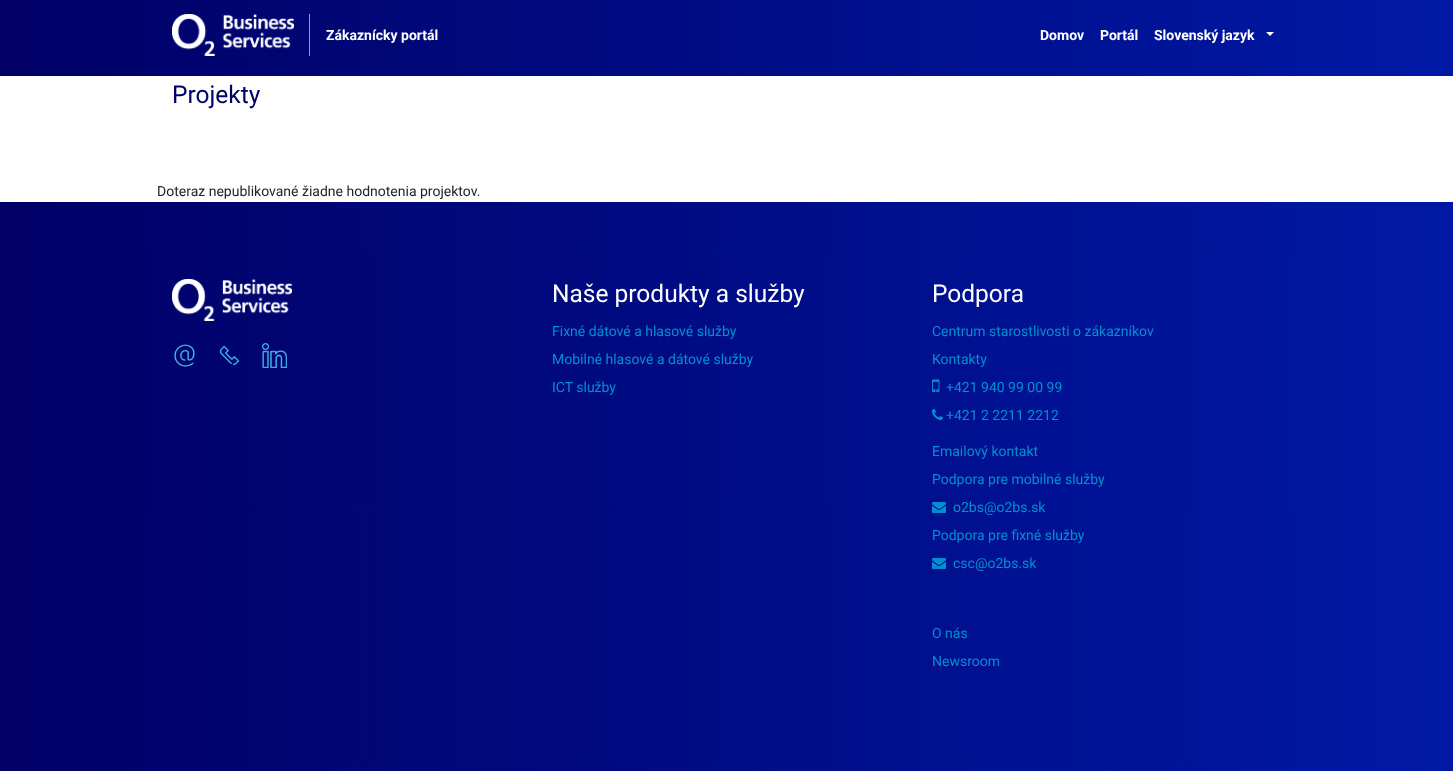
<svg xmlns="http://www.w3.org/2000/svg" xmlns:xlink="http://www.w3.org/1999/xlink" width="1453" height="771" viewBox="0 0 1453 771">
<style>
.cls-1{font:bold 14px Roboto;fill:#ffffff}
.cls-2{font:24.5px Roboto;fill:#000066}
.cls-3{font:14px Roboto;fill:#212529}
.cls-4{font:24.5px Roboto;fill:#ffffff}
.cls-5{font:14px Roboto;fill:#0090d0}
</style>
<defs>
<linearGradient id="g1" gradientUnits="userSpaceOnUse" x1="0" y1="35" x2="1453" y2="35"><stop offset="0" stop-color="#000066"/><stop offset="1" stop-color="#0019a5"/></linearGradient>
<linearGradient id="g2" gradientUnits="userSpaceOnUse" x1="0" y1="515" x2="1453" y2="515"><stop offset="0" stop-color="#000066"/><stop offset="1" stop-color="#0019a5"/></linearGradient>
</defs>
<rect width="100%" height="100%" fill="#ffffff"/>
<rect fill="url(#g1)" x="0" y="0" width="1453" height="76"/>
<image xlink:href="image0.png" x="172" y="14" width="122" height="42"/>
<rect fill="#93a0bb" x="309" y="14" width="1" height="42"/>
<path fill="#ffffff" d="M1266 32H1274L1270 36Z"/>
<rect fill="url(#g2)" x="0" y="202" width="1453" height="569"/>
<image xlink:href="image1.png" x="172" y="279" width="120" height="42"/>
<image xlink:href="image2.png" x="174" y="344" width="21" height="23"/>
<image xlink:href="image3.png" x="219" y="345" width="21" height="21"/>
<image xlink:href="image4.png" x="262" y="343" width="25" height="25"/>
<image xlink:href="image5.png" x="932" y="379" width="8" height="13"/>
<image xlink:href="image6.png" x="932" y="409" width="11" height="11"/>
<image xlink:href="image7.png" x="932" y="502" width="14" height="11"/>
<image xlink:href="image7.png" x="932" y="558" width="14" height="11"/>
<text class="cls-1" x="326" y="40">Zákaznícky portál</text>
<text class="cls-1" x="1040" y="40">Domov</text>
<text class="cls-1" x="1100" y="40">Portál</text>
<text class="cls-1" x="1154" y="40">Slovenský jazyk</text>
<text class="cls-2" x="172" y="103">Projekty</text>
<text class="cls-3" x="157" y="196">Doteraz nepublikované žiadne hodnotenia projektov.</text>
<text class="cls-4" x="552" y="302">Naše produkty a služby</text>
<text class="cls-5" x="552" y="336">Fixné dátové a hlasové služby</text>
<text class="cls-5" x="552" y="364">Mobilné hlasové a dátové služby</text>
<text class="cls-5" x="552" y="392">ICT služby</text>
<text class="cls-4" x="932" y="302">Podpora</text>
<text class="cls-5" x="932" y="336">Centrum starostlivosti o zákazníkov</text>
<text class="cls-5" x="932" y="364">Kontakty</text>
<text class="cls-5" x="946" y="392">+421 940 99 00 99</text>
<text class="cls-5" x="946" y="420">+421 2 2211 2212</text>
<text class="cls-5" x="932" y="456">Emailový kontakt</text>
<text class="cls-5" x="932" y="484">Podpora pre mobilné služby</text>
<text class="cls-5" x="953" y="512">o2bs@o2bs.sk</text>
<text class="cls-5" x="932" y="540">Podpora pre fixné služby</text>
<text class="cls-5" x="953" y="568">csc@o2bs.sk</text>
<text class="cls-5" x="932" y="638">O nás</text>
<text class="cls-5" x="932" y="666">Newsroom</text>
</svg>
